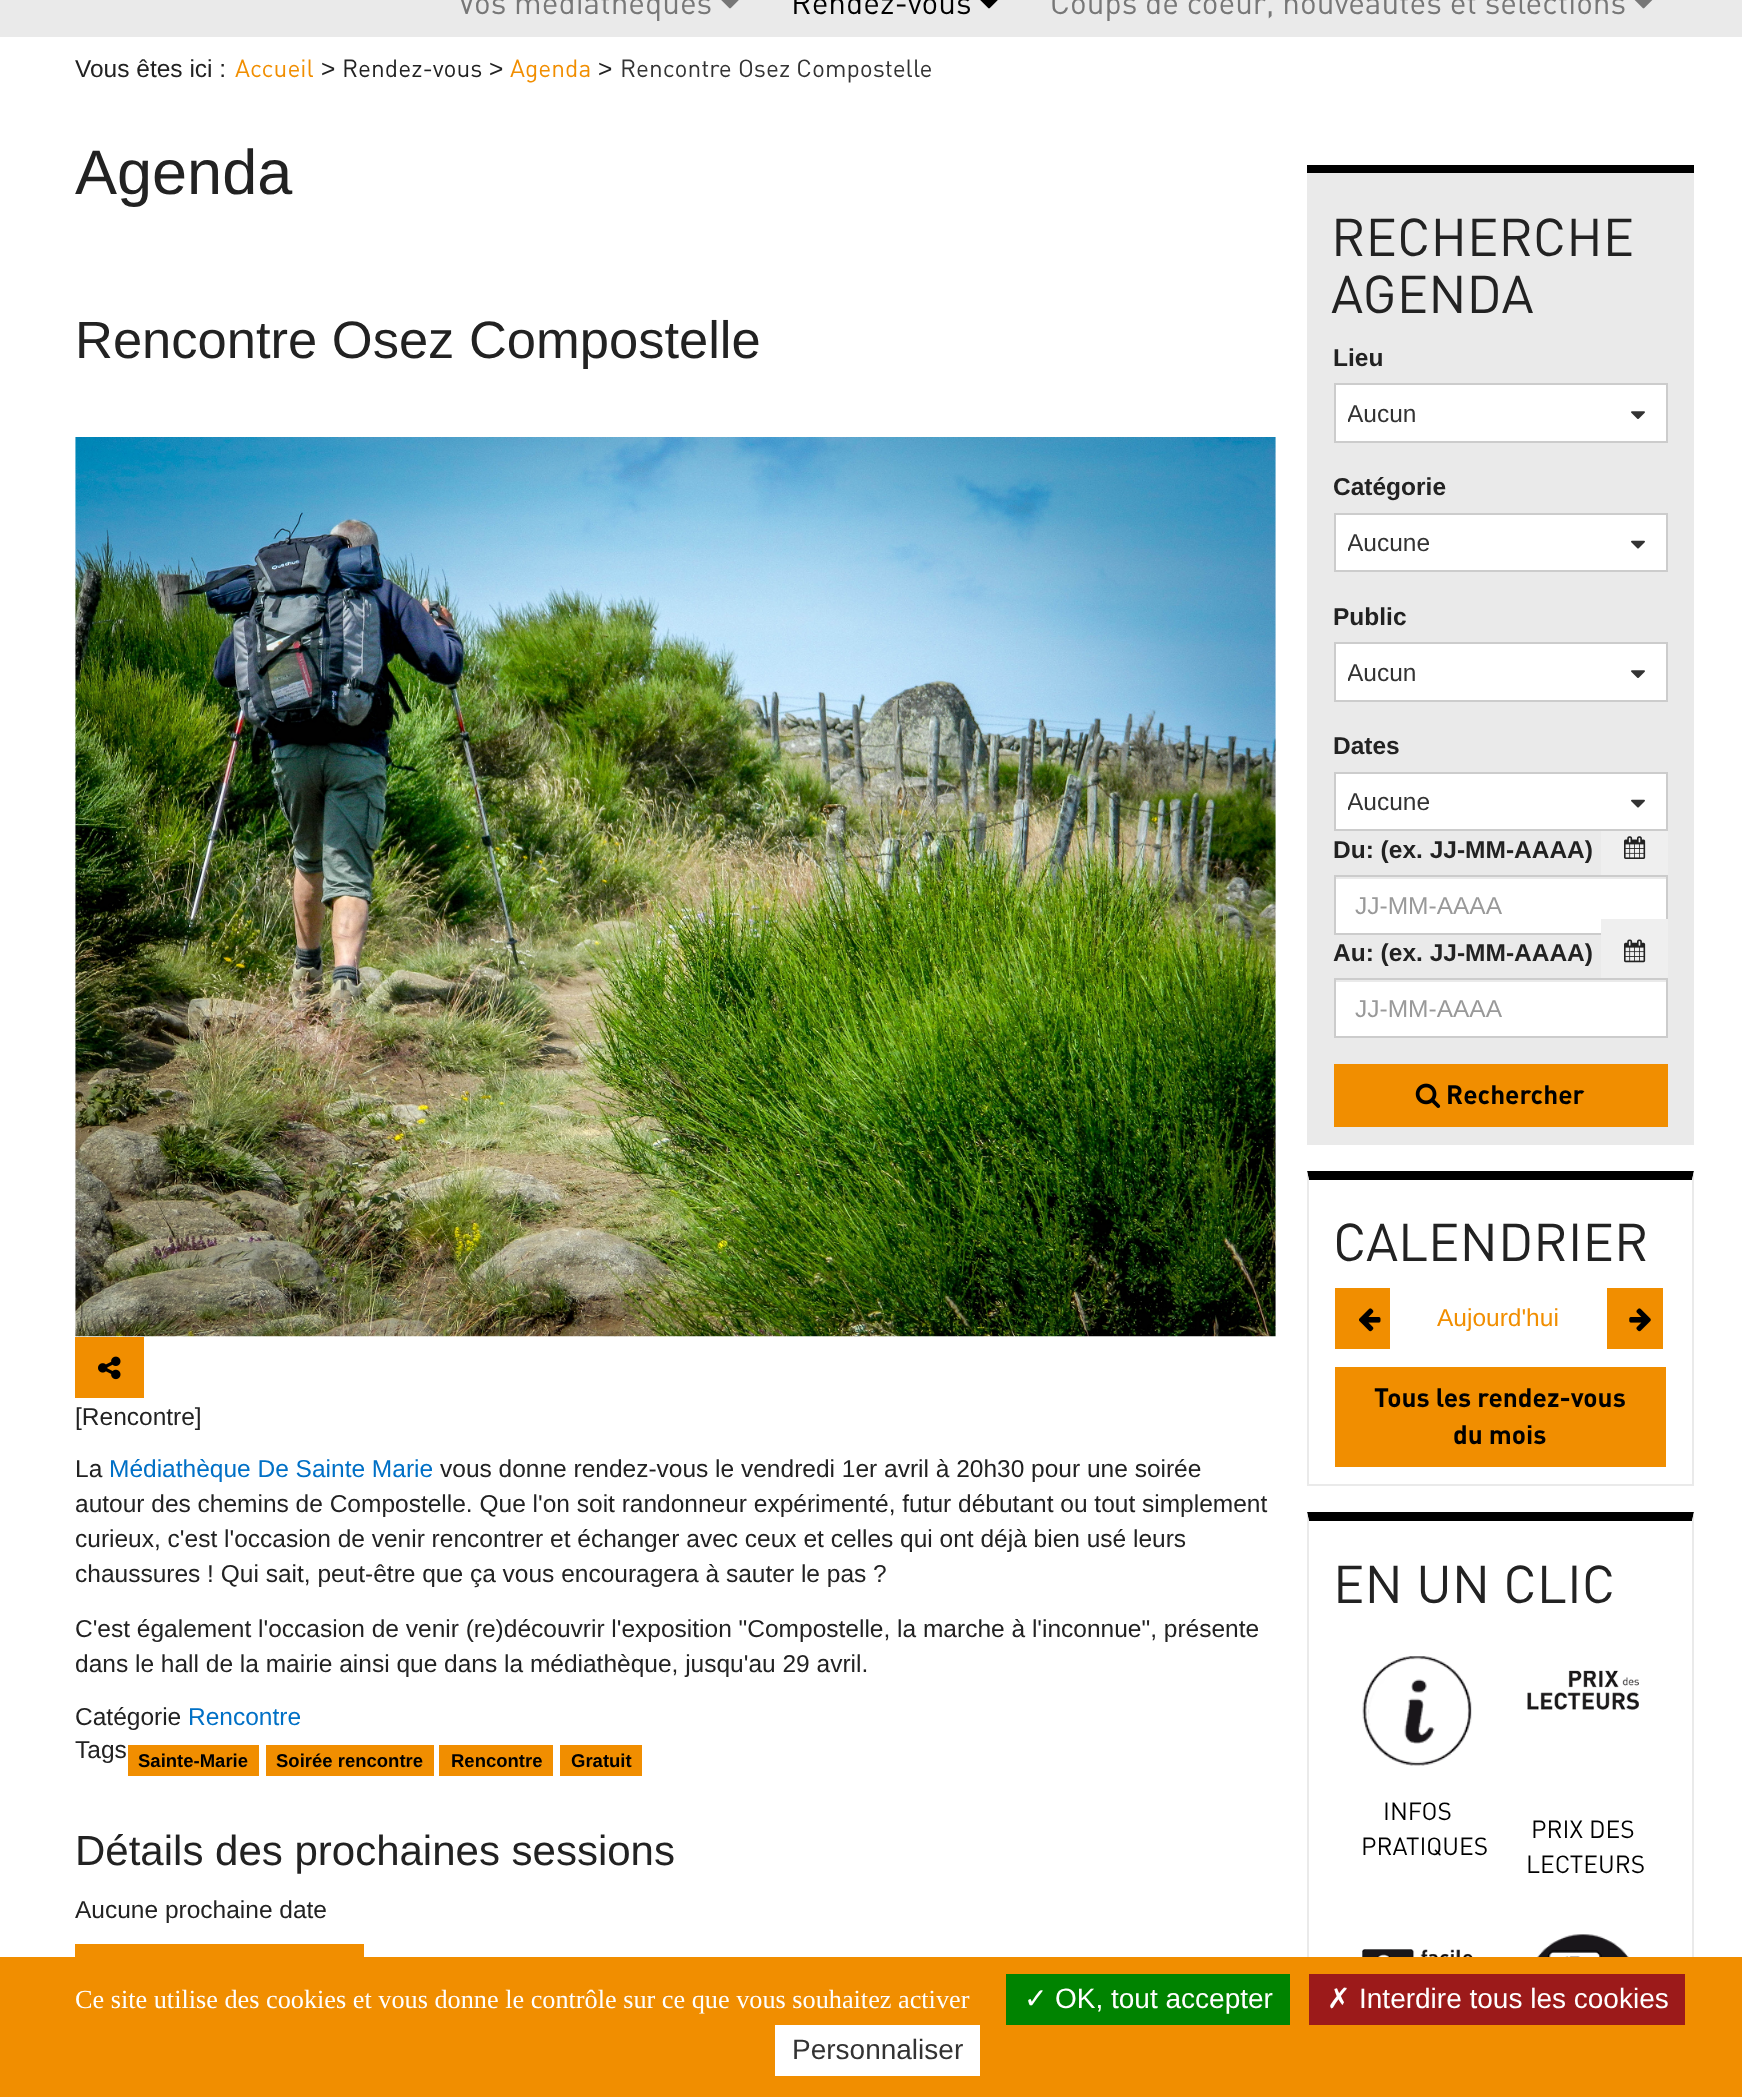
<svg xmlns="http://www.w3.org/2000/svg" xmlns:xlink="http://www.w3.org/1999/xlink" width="1742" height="2097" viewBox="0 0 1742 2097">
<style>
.cls-1{font:31.5px DIN;fill:#777777}
.cls-2{font:31.5px DIN;fill:#000000}
.cls-3{font:24.5px Liberation Sans;fill:#222222}
.cls-4{font:24.5px DIN;fill:#f18e00}
.cls-5{font:24.5px DIN;fill:#222222}
.cls-6{font:24.5px DIN;fill:#333333}
.cls-7{font:63px Liberation Sans;fill:#222222}
.cls-8{font:52.5px Liberation Sans;fill:#222222}
.cls-9{font:24.5px Liberation Sans;fill:#0070c6}
.cls-10{font:bold 18.5px Liberation Sans;fill:#000000}
.cls-11{font:42px Liberation Sans;fill:#222222}
.cls-12{font:52.5px DIN;fill:#222222}
.cls-13{font:bold 24.5px Liberation Sans;fill:#222222}
.cls-14{font:24.5px Liberation Sans;fill:#333333}
.cls-15{font:24.5px Liberation Sans;fill:#999999}
.cls-16{font:bold 26.25px DIN;fill:#000000}
.cls-17{font:24.5px Liberation Sans;fill:#f18e00}
.cls-18{font:24.5px DIN;fill:#000000}
.cls-19{font:26.25px Liberation Serif;fill:#ffffff}
.cls-20{font:28px DejaVu Sans;fill:#ffffff}
.cls-21{font:28px Liberation Sans;fill:#ffffff}
.cls-22{font:28px Liberation Sans;fill:#333333}
</style>
<defs>
<clipPath id="clip1"><rect x="1348" y="399" width="306" height="28"/></clipPath>
<clipPath id="clip2"><rect x="1348" y="529" width="306" height="28"/></clipPath>
<clipPath id="clip3"><rect x="1348" y="658" width="306" height="28"/></clipPath>
<clipPath id="clip4"><rect x="1348" y="788" width="306" height="28"/></clipPath>
</defs>
<rect width="100%" height="100%" fill="#ffffff"/>
<rect fill="#eaeaea" x="0" y="0" width="1742" height="37"/>
<image xlink:href="image0.png" x="721" y="0" width="18" height="9"/>
<image xlink:href="image1.png" x="980" y="0" width="18" height="9"/>
<image xlink:href="image2.png" x="1634" y="0" width="19" height="9"/>
<image xlink:href="image3.png" x="75" y="437" width="1201" height="900"/>
<rect fill="#f18e00" x="75" y="1337" width="69" height="61"/>
<image xlink:href="image4.png" x="98" y="1356" width="23" height="24"/>
<rect fill="#f18e00" x="128" y="1745" width="131" height="31"/>
<rect fill="#f18e00" x="266" y="1745" width="168" height="31"/>
<rect fill="#f18e00" x="439" y="1745" width="114" height="31"/>
<rect fill="#f18e00" x="560" y="1745" width="82" height="31"/>
<rect fill="#f18e00" x="75" y="1944" width="289" height="13"/>
<rect fill="#eaeaea" x="1307" y="173" width="387" height="972"/>
<rect fill="#000000" x="1307" y="165" width="387" height="8"/>
<rect fill="#ffffff" stroke="#cccccc" stroke-width="2" x="1335" y="384" width="332" height="58"/>
<image xlink:href="image5.png" x="1631" y="411" width="14" height="8"/>
<rect fill="#ffffff" stroke="#cccccc" stroke-width="2" x="1335" y="514" width="332" height="57"/>
<image xlink:href="image6.png" x="1631" y="540" width="14" height="9"/>
<rect fill="#ffffff" stroke="#cccccc" stroke-width="2" x="1335" y="643" width="332" height="58"/>
<image xlink:href="image5.png" x="1631" y="670" width="14" height="8"/>
<rect fill="#ffffff" stroke="#cccccc" stroke-width="2" x="1335" y="773" width="332" height="57"/>
<image xlink:href="image6.png" x="1631" y="799" width="14" height="9"/>
<rect fill="#efefef" x="1601" y="831" width="67" height="44"/>
<image xlink:href="image7.png" x="1624" y="836" width="22" height="23"/>
<rect fill="#ffffff" x="1336" y="879" width="330" height="54"/>
<rect fill="none" stroke="#cccccc" stroke-width="2" x="1335" y="876" width="332" height="58"/>
<rect fill="#efefef" x="1601" y="919" width="67" height="59"/>
<image xlink:href="image8.png" x="1624" y="939" width="22" height="24"/>
<rect fill="#ffffff" x="1336" y="982" width="330" height="54"/>
<rect fill="none" stroke="#cccccc" stroke-width="2" x="1335" y="979" width="332" height="58"/>
<rect fill="#f18e00" x="1334" y="1064" width="334" height="63"/>
<image xlink:href="image9.png" x="1415" y="1083" width="26" height="25"/>
<path fill="#000000" d="M1307 1171H1694L1692 1180H1309Z"/>
<path fill="#eaeaea" d="M1694 1171V1486L1692 1484V1180Z"/>
<rect fill="#eaeaea" x="1307" y="1484" width="387" height="2"/>
<path fill="#eaeaea" d="M1307 1486V1171L1309 1180V1484Z"/>
<rect fill="#f18e00" x="1335" y="1288" width="55" height="61"/>
<image xlink:href="image10.png" x="1359" y="1308" width="22" height="24"/>
<rect fill="#f18e00" x="1607" y="1288" width="56" height="61"/>
<image xlink:href="image11.png" x="1629" y="1308" width="22" height="24"/>
<rect fill="#f18e00" x="1335" y="1367" width="331" height="100"/>
<path fill="#000000" d="M1307 1512H1694L1692 1521H1309Z"/>
<path fill="#eaeaea" d="M1694 1512V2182L1692 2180V1521Z"/>
<path fill="#eaeaea" d="M1307 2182V1512L1309 1521V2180Z"/>
<image xlink:href="image12.png" x="1362" y="1656" width="110" height="110"/>
<image xlink:href="image13.png" x="1527" y="1670" width="112" height="40"/>
<image xlink:href="image14.png" x="1362" y="1949" width="111" height="8"/>
<image xlink:href="image15.png" x="1527" y="1934" width="112" height="23"/>
<rect fill="#f18e00" x="0" y="1957" width="1742" height="140"/>
<rect fill="#008300" x="1006" y="1974" width="284" height="51"/>
<rect fill="#9c1a1a" x="1309" y="1974" width="376" height="51"/>
<rect fill="#ffffff" x="775" y="2025" width="205" height="51"/>
<text class="cls-1" x="458" y="14">Vos médiathèques</text>
<text class="cls-2" x="791" y="14">Rendez-vous</text>
<text class="cls-1" x="1050" y="14">Coups de coeur, nouveautés et sélections</text>
<text class="cls-3" x="75" y="77">Vous êtes ici :</text>
<text class="cls-4" x="235" y="77">Accueil</text>
<text class="cls-3" x="321" y="77">&gt;</text>
<text class="cls-5" x="342" y="77">Rendez-vous</text>
<text class="cls-3" x="489" y="77">&gt;</text>
<text class="cls-4" x="510" y="77">Agenda</text>
<text class="cls-3" x="598" y="77">&gt;</text>
<text class="cls-6" x="620" y="77">Rencontre Osez Compostelle</text>
<text class="cls-7" x="75" y="194">Agenda</text>
<text class="cls-8" x="75" y="358">Rencontre Osez Compostelle</text>
<text class="cls-3" x="75" y="1425">[Rencontre]</text>
<text class="cls-3" x="75" y="1477">La</text>
<text class="cls-9" x="109" y="1477">Médiathèque De Sainte Marie</text>
<text class="cls-3" x="440" y="1477">vous donne rendez-vous le vendredi 1er avril à 20h30 pour une soirée</text>
<text class="cls-3"><tspan x="75" y="1512">autour des chemins de Compostelle. Que l'on soit randonneur expérimenté, futur débutant ou tout simplement</tspan><tspan x="75" y="1547">curieux, c'est l'occasion de venir rencontrer et échanger avec ceux et celles qui ont déjà bien usé leurs</tspan><tspan x="75" y="1582">chaussures ! Qui sait, peut-être que ça vous encouragera à sauter le pas ?</tspan></text>
<text class="cls-3"><tspan x="75" y="1637">C'est également l'occasion de venir (re)découvrir l'exposition "Compostelle, la marche à l'inconnue", présente</tspan><tspan x="75" y="1672">dans le hall de la mairie ainsi que dans la médiathèque, jusqu'au 29 avril.</tspan></text>
<text class="cls-3" x="75" y="1725">Catégorie</text>
<text class="cls-9" x="188" y="1725">Rencontre</text>
<text class="cls-3" x="75" y="1758">Tags</text>
<text class="cls-10" x="138" y="1767">Sainte-Marie</text>
<text class="cls-10" x="276" y="1767">Soirée rencontre</text>
<text class="cls-10" x="451" y="1767">Rencontre</text>
<text class="cls-10" x="571" y="1767">Gratuit</text>
<text class="cls-11" x="75" y="1865">Détails des prochaines sessions</text>
<text class="cls-3" x="75" y="1918">Aucune prochaine date</text>
<text class="cls-12"><tspan x="1331" y="256">RECHERCHE</tspan><tspan x="1331" y="313">AGENDA</tspan></text>
<text class="cls-13" x="1333" y="366">Lieu</text>
<g clip-path="url(#clip1)">
<text class="cls-14" x="1347" y="422">Aucun</text>
</g>
<text class="cls-13" x="1333" y="495">Catégorie</text>
<g clip-path="url(#clip2)">
<text class="cls-14" x="1347" y="551">Aucune</text>
</g>
<text class="cls-13" x="1333" y="625">Public</text>
<g clip-path="url(#clip3)">
<text class="cls-14" x="1347" y="681">Aucun</text>
</g>
<text class="cls-13" x="1333" y="754">Dates</text>
<g clip-path="url(#clip4)">
<text class="cls-14" x="1347" y="810">Aucune</text>
</g>
<text class="cls-13" x="1333" y="858">Du: (ex. JJ-MM-AAAA)</text>
<text class="cls-15" x="1355" y="914">JJ-MM-AAAA</text>
<text class="cls-13" x="1333" y="961">Au: (ex. JJ-MM-AAAA)</text>
<text class="cls-15" x="1355" y="1017">JJ-MM-AAAA</text>
<text class="cls-16" x="1446" y="1104">Rechercher</text>
<text class="cls-12" x="1333" y="1261">CALENDRIER</text>
<text class="cls-17" x="1437" y="1326">Aujourd'hui</text>
<text class="cls-16" x="1374" y="1407">Tous les rendez-vous</text>
<text class="cls-16" x="1453" y="1444">du mois</text>
<text class="cls-12" x="1333" y="1603">EN UN CLIC</text>
<text class="cls-18" x="1383" y="1820">INFOS</text>
<text class="cls-18" x="1361" y="1855">PRATIQUES</text>
<text class="cls-18" x="1531" y="1838">PRIX DES</text>
<text class="cls-18" x="1526" y="1873">LECTEURS</text>
<text class="cls-19" x="75" y="2008">Ce site utilise des cookies et vous donne le contrôle sur ce que vous souhaitez activer</text>
<text class="cls-20" x="1024" y="2008">✓</text>
<text class="cls-21" x="1055" y="2008">OK, tout accepter</text>
<text class="cls-20" x="1327" y="2008">✗</text>
<text class="cls-21" x="1359" y="2008">Interdire tous les cookies</text>
<text class="cls-22" x="792" y="2059">Personnaliser</text>
</svg>
